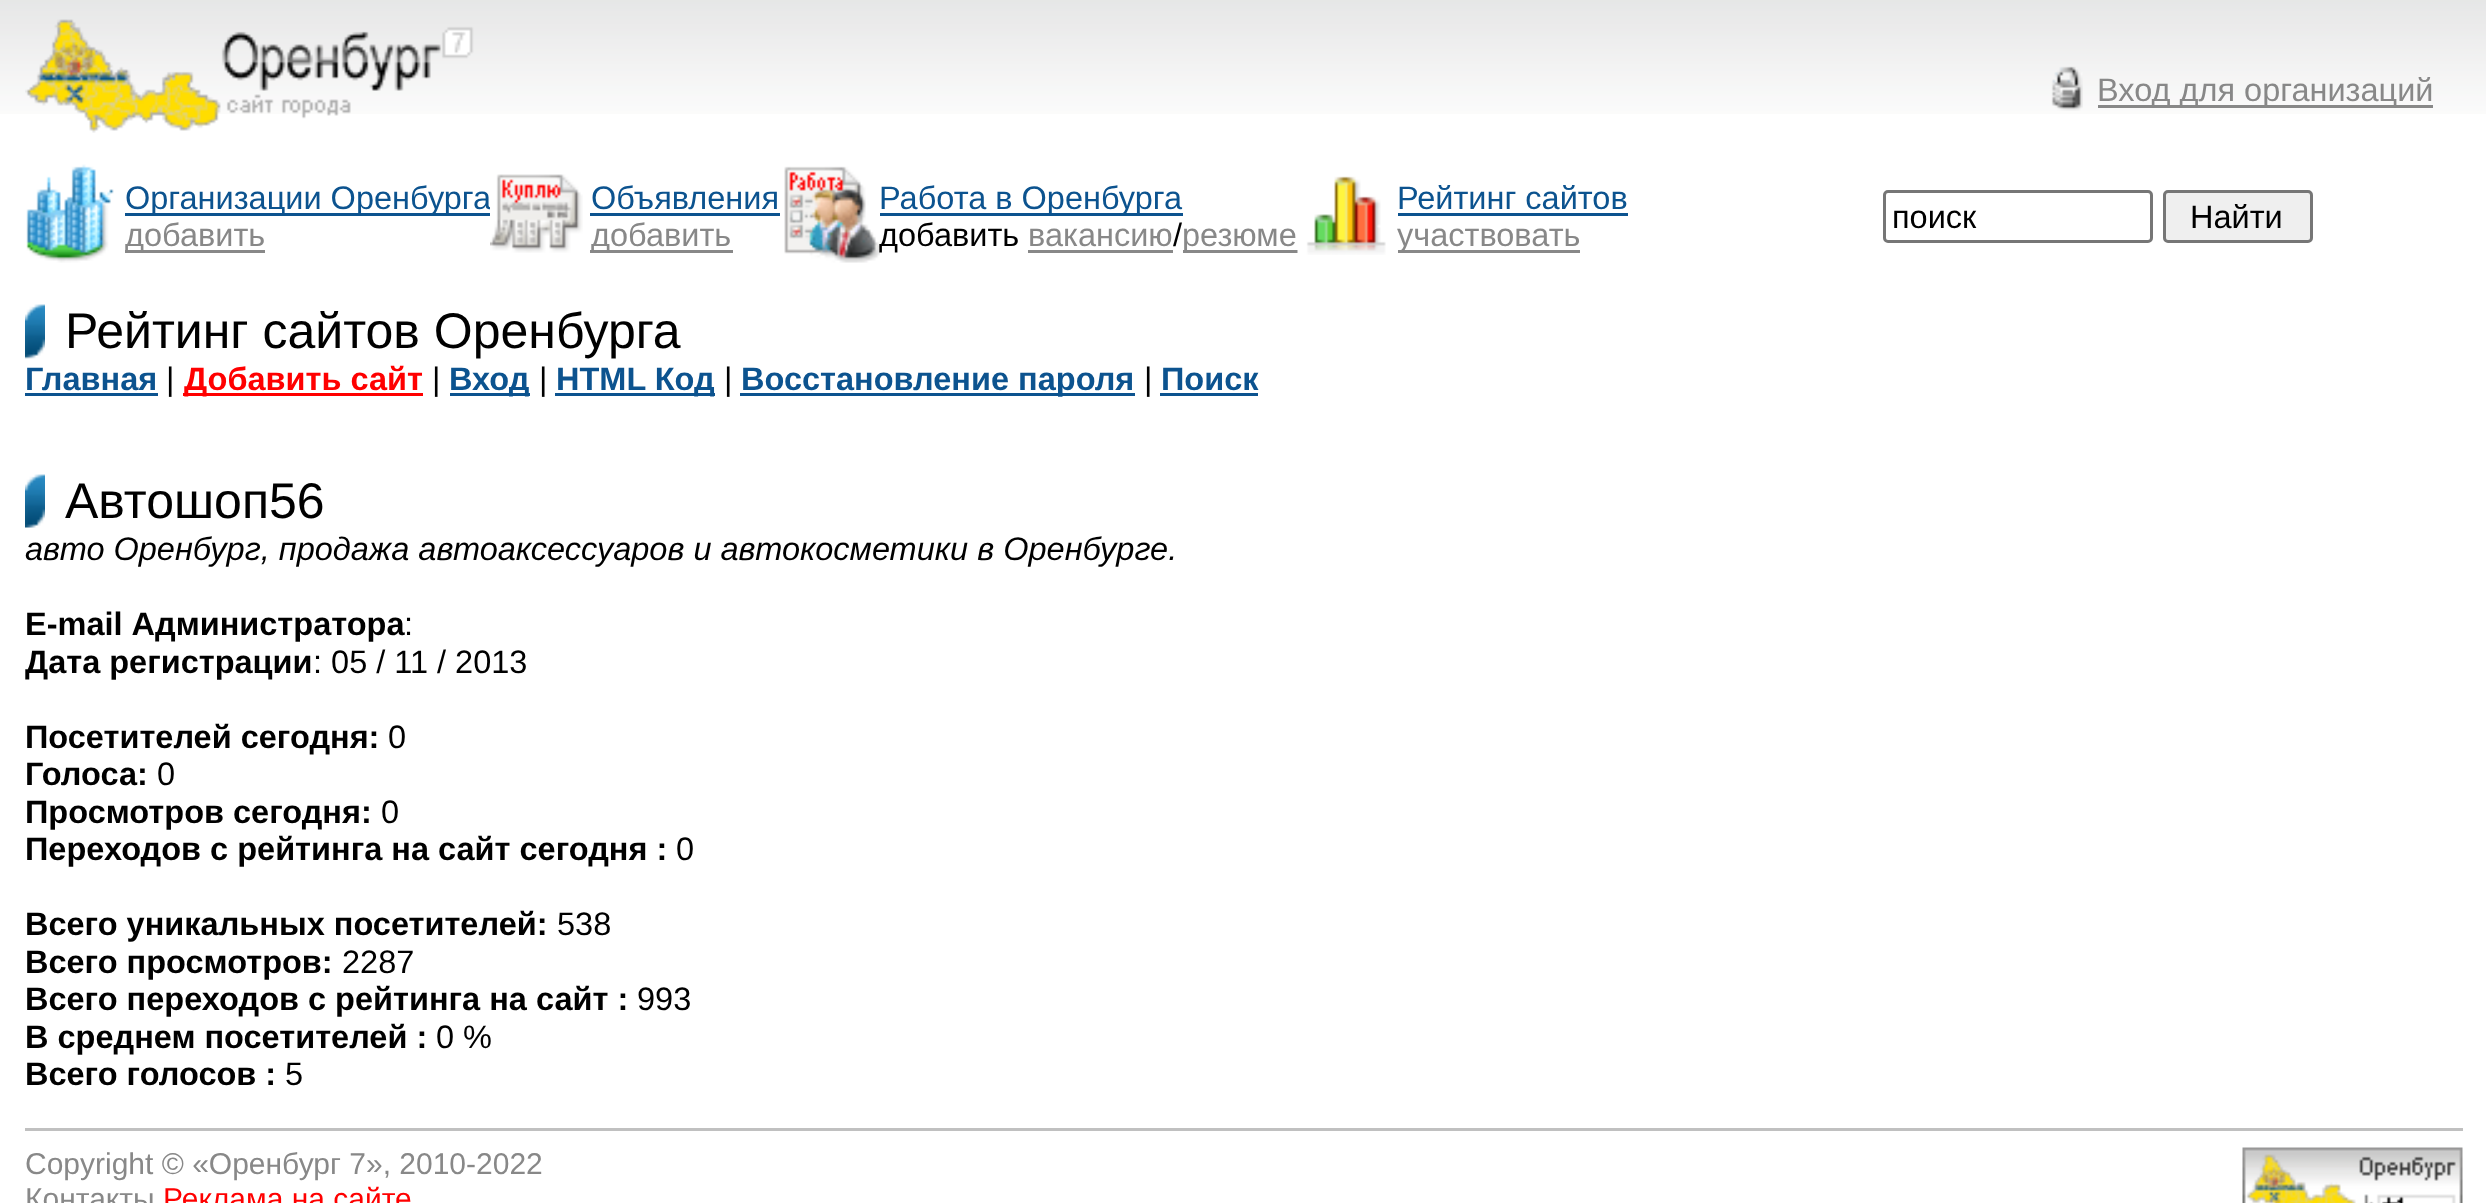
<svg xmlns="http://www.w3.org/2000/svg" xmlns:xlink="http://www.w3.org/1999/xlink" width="2486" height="1203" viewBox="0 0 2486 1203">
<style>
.cls-1{font:32.5px Liberation Sans;fill:#888888}
.cls-2{font:32.5px Liberation Sans;fill:#0c538f}
.cls-3{font:32.5px Liberation Sans;fill:#000000}
.cls-4{font:50px Liberation Sans;fill:#000000}
.cls-5{font:bold 32.5px Liberation Sans;fill:#0c538f}
.cls-6{font:bold 32.5px Liberation Sans;fill:#ff0000}
.cls-7{font:italic 32.5px Liberation Sans;fill:#000000}
.cls-8{font:bold 32.5px Liberation Sans;fill:#000000}
.cls-9{font:30px Liberation Sans;fill:#888888}
.cls-10{font:30px Liberation Sans;fill:#ff0000}
</style>
<rect width="100%" height="100%" fill="#ffffff"/>
<image xlink:href="image0.png" x="0" y="0" width="2486" height="114"/>
<image xlink:href="image1.png" x="25" y="19" width="449" height="114"/>
<image xlink:href="image2.png" x="2051" y="66" width="32" height="45"/>
<rect fill="#888888" x="2098" y="105" width="335" height="3"/>
<image xlink:href="image3.png" x="26" y="164" width="88" height="99"/>
<rect fill="#0c538f" x="125" y="213" width="365" height="3"/>
<rect fill="#888888" x="125" y="250" width="140" height="3"/>
<rect fill="#0c538f" x="590" y="213" width="190" height="3"/>
<rect fill="#888888" x="590" y="250" width="143" height="3"/>
<image xlink:href="image5.png" x="784" y="166" width="96" height="97"/>
<rect fill="#0c538f" x="880" y="213" width="303" height="3"/>
<rect fill="#888888" x="1028" y="250" width="145" height="3"/>
<rect fill="#888888" x="1183" y="250" width="115" height="3"/>
<image xlink:href="image6.png" x="1297" y="176" width="89" height="79"/>
<rect fill="#0c538f" x="1398" y="213" width="230" height="3"/>
<rect fill="#888888" x="1398" y="250" width="182" height="3"/>
<rect fill="none" stroke="#767676" stroke-width="3" x="1884.5" y="191.5" width="267" height="50" rx="3.5"/>
<rect fill="#efefef" stroke="#767676" stroke-width="3" x="2164.5" y="191.5" width="147" height="50" rx="3.5"/>
<image xlink:href="image7.png" x="25" y="304" width="20" height="55"/>
<rect fill="#0c538f" x="25" y="393" width="133" height="3"/>
<rect fill="#ff0000" x="183" y="393" width="240" height="3"/>
<rect fill="#0c538f" x="450" y="393" width="80" height="3"/>
<rect fill="#0c538f" x="555" y="393" width="160" height="3"/>
<rect fill="#0c538f" x="740" y="393" width="395" height="3"/>
<rect fill="#0c538f" x="1160" y="393" width="98" height="3"/>
<image xlink:href="image8.png" x="25" y="474" width="20" height="54"/>
<rect fill="#c0c0c0" x="25" y="1128" width="2438" height="3"/>
<image xlink:href="image9.png" x="2242" y="1147" width="221" height="56"/>
<text class="cls-1" x="2097" y="101">Вход для организаций</text>
<text class="cls-2" x="125" y="209">Организации Оренбурга</text>
<text class="cls-1" x="125" y="246">добавить</text>
<image xlink:href="image4.png" x="490" y="174" width="93" height="79"/>
<text class="cls-2" x="591" y="209">Объявления</text>
<text class="cls-1" x="591" y="246">добавить</text>
<text class="cls-2" x="879" y="209">Работа в Оренбурга</text>
<text class="cls-3" x="879" y="246">добавить</text>
<text class="cls-1" x="1028" y="246">вакансию</text>
<text class="cls-3" x="1173" y="246">/</text>
<text class="cls-1" x="1182" y="246">резюме</text>
<text class="cls-2" x="1397" y="209">Рейтинг сайтов</text>
<text class="cls-1" x="1397" y="246">участвовать</text>
<text class="cls-3" x="1892" y="228">поиск</text>
<text class="cls-3" x="2190" y="228">Найти</text>
<text class="cls-4" x="65" y="348">Рейтинг сайтов Оренбурга</text>
<text class="cls-5" x="25" y="390">Главная</text>
<text class="cls-3" x="166" y="390">|</text>
<text class="cls-6" x="184" y="390">Добавить сайт</text>
<text class="cls-3" x="432" y="390">|</text>
<text class="cls-5" x="449" y="390">Вход</text>
<text class="cls-3" x="539" y="390">|</text>
<text class="cls-5" x="556" y="390">HTML Код</text>
<text class="cls-3" x="724" y="390">|</text>
<text class="cls-5" x="741" y="390">Восстановление пароля</text>
<text class="cls-3" x="1144" y="390">|</text>
<text class="cls-5" x="1161" y="390">Поиск</text>
<text class="cls-4" x="65" y="518">Автошоп56</text>
<text class="cls-7" x="25" y="560">авто Оренбург, продажа автоаксессуаров и автокосметики в Оренбурге.</text>
<text class="cls-8" x="25" y="635">E-mail Администратора</text>
<text class="cls-3" x="404" y="635">:</text>
<text class="cls-8" x="25" y="673">Дата регистрации</text>
<text class="cls-3" x="313" y="673">: 05 / 11 / 2013</text>
<text class="cls-8" x="25" y="748">Посетителей сегодня:</text>
<text class="cls-3" x="388" y="748">0</text>
<text class="cls-8" x="25" y="785">Голоса:</text>
<text class="cls-3" x="157" y="785">0</text>
<text class="cls-8" x="25" y="823">Просмотров сегодня:</text>
<text class="cls-3" x="381" y="823">0</text>
<text class="cls-8" x="25" y="860">Переходов с рейтинга на сайт сегодня :</text>
<text class="cls-3" x="676" y="860">0</text>
<text class="cls-8" x="25" y="935">Всего уникальных посетителей:</text>
<text class="cls-3" x="557" y="935">538</text>
<text class="cls-8" x="25" y="973">Всего просмотров:</text>
<text class="cls-3" x="342" y="973">2287</text>
<text class="cls-8" x="25" y="1010">Всего переходов с рейтинга на сайт :</text>
<text class="cls-3" x="637" y="1010">993</text>
<text class="cls-8" x="25" y="1048">В среднем посетителей :</text>
<text class="cls-3" x="436" y="1048">0 %</text>
<text class="cls-8" x="25" y="1085">Всего голосов :</text>
<text class="cls-3" x="285" y="1085">5</text>
<text class="cls-9"><tspan x="25" y="1174">Copyright © «Оренбург 7», 2010-2022</tspan><tspan x="25" y="1209">Контакты</tspan></text>
<text class="cls-10" x="163" y="1209">Реклама на сайте</text>
</svg>
